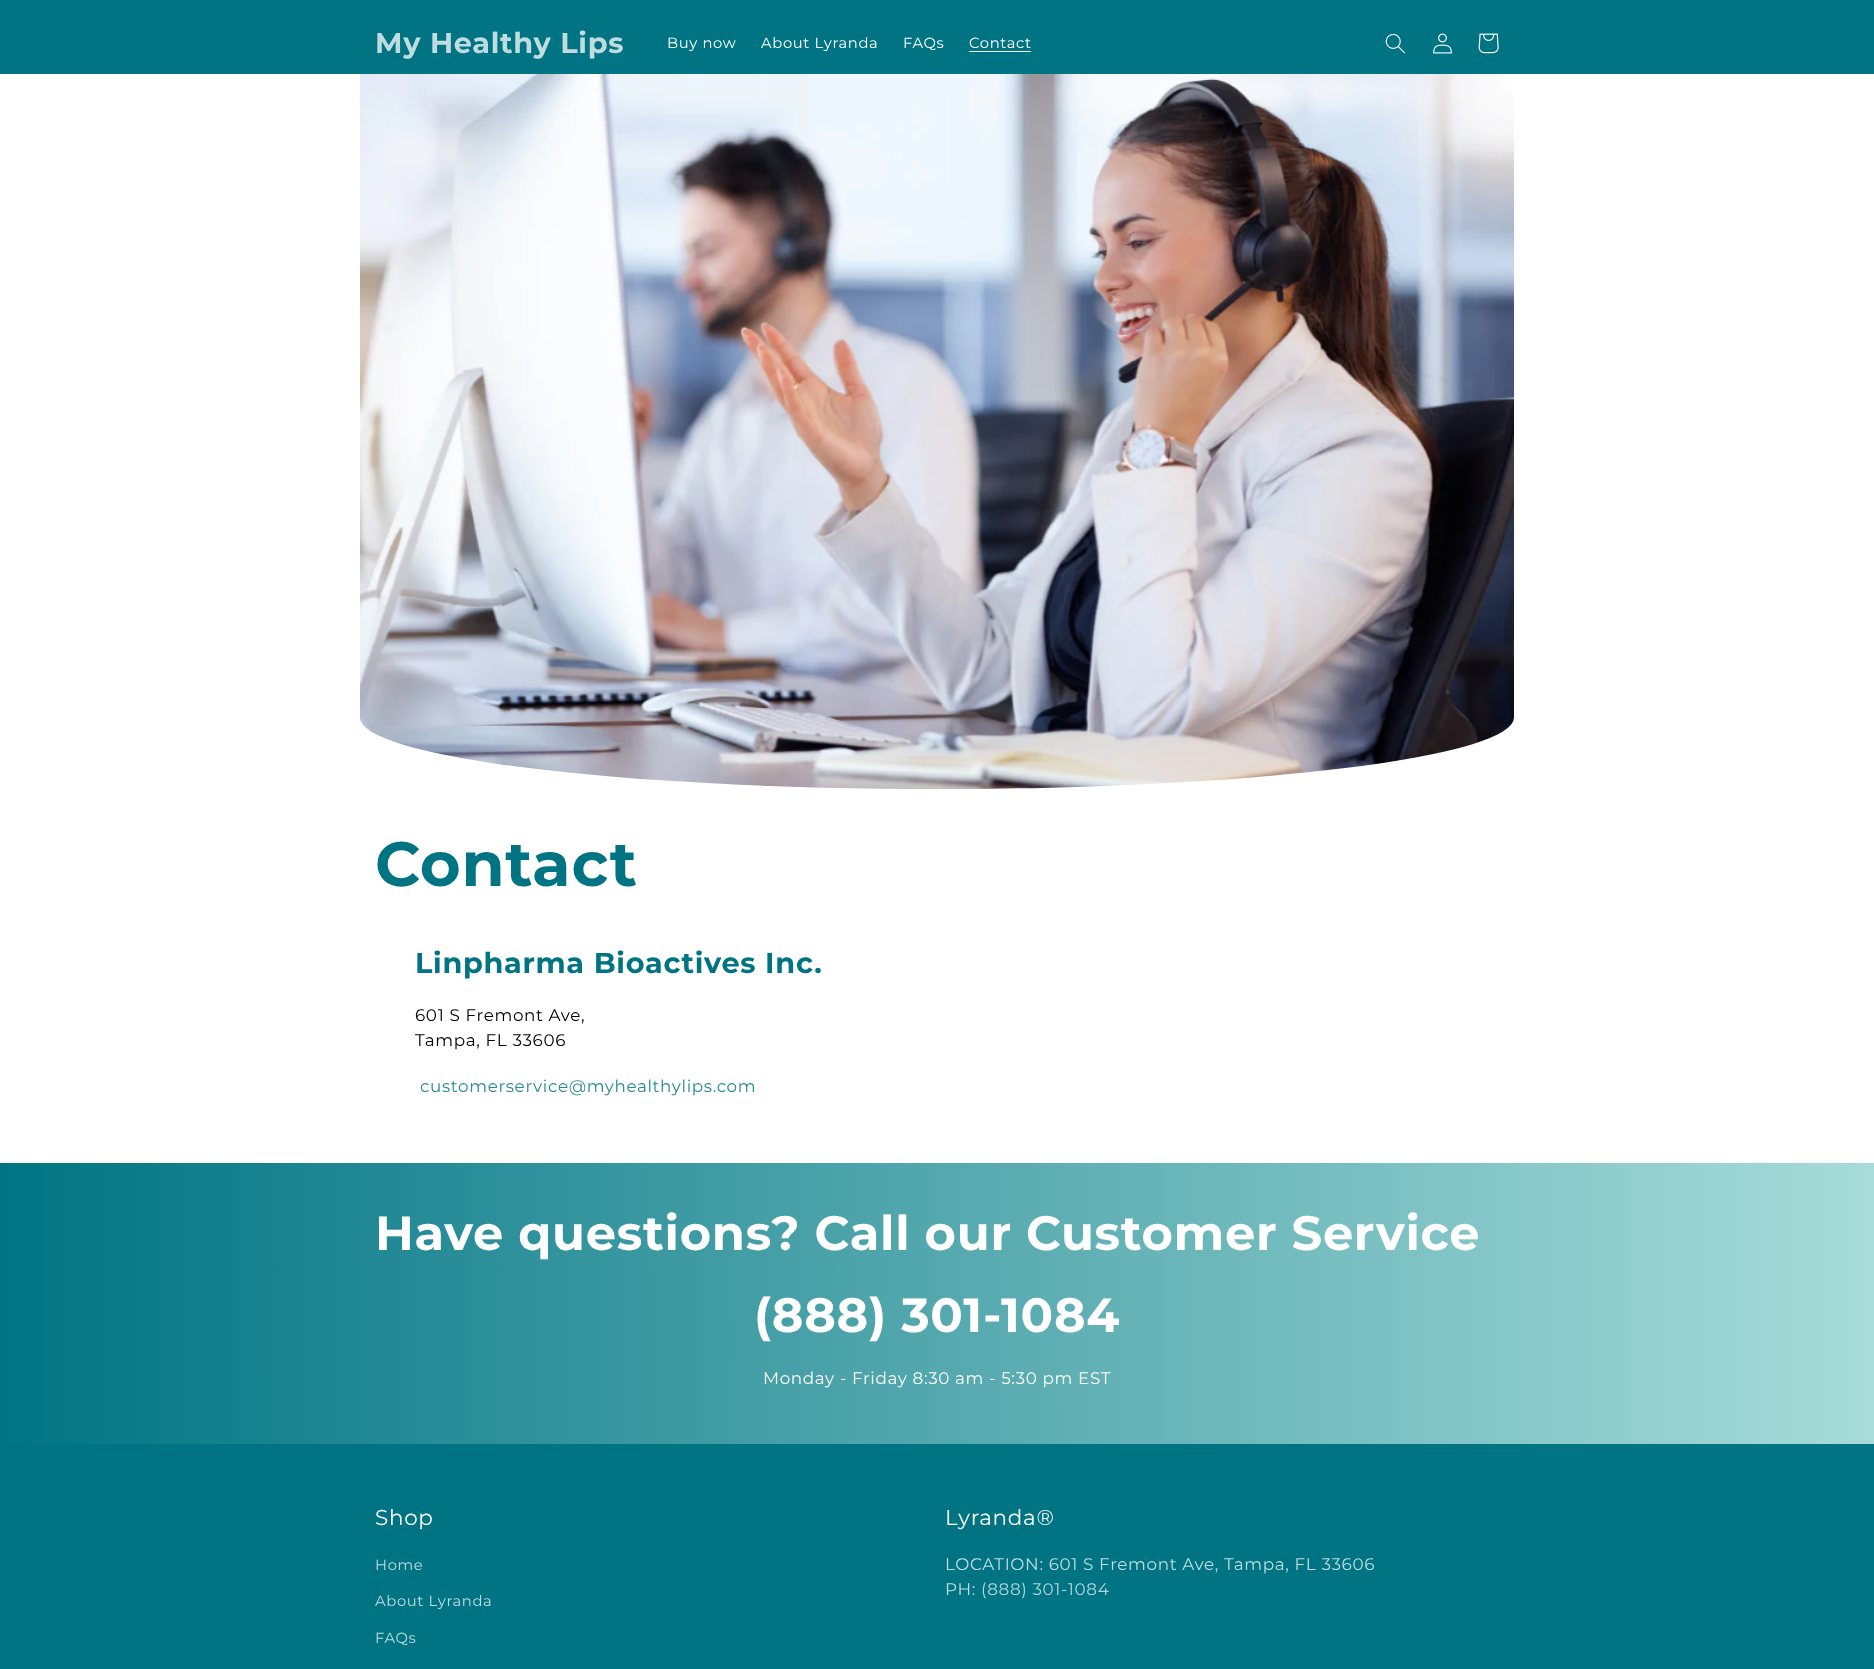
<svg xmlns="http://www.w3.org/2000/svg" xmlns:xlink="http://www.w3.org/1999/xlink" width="1874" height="1669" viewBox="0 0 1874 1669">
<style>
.cls-1{font:bold 28.75px Montserrat;letter-spacing:0.7px;fill:#bfdce0}
.cls-2{font:14.75px Montserrat;letter-spacing:0.65px;fill:#ffffff}
.cls-3{font:bold 62.5px Montserrat;letter-spacing:0.7px;fill:#007483}
.cls-4{font:bold 28.75px Montserrat;letter-spacing:0.7px;fill:#007483}
.cls-5{font:16.8px Montserrat;letter-spacing:0.65px;fill:#000000}
.cls-6{font:16.8px Montserrat;letter-spacing:0.65px;fill:#268996}
.cls-7{font:bold 48px Montserrat;letter-spacing:0.7px;fill:#ffffff}
.cls-8{font:16.8px Montserrat;letter-spacing:0.65px;fill:#ffffff}
.cls-9{font:21.5px Montserrat;letter-spacing:0.7px;fill:#ffffff}
.cls-10{font:14.75px Montserrat;letter-spacing:0.65px;fill:#bfdce0}
.cls-11{font:16.8px Montserrat;letter-spacing:0.65px;fill:#bfdce0}
.cls-12{font:16.8px Montserrat;letter-spacing:0.65px;fill:#b3d5da}
</style>
<defs>
<linearGradient id="g1" gradientUnits="userSpaceOnUse" x1="0" y1="835" x2="1874" y2="834"><stop offset="0" stop-color="#007483"/><stop offset="1" stop-color="#a7dcd9"/></linearGradient>
</defs>
<rect width="100%" height="100%" fill="#ffffff"/>
<rect fill="#007483" x="0" y="0" width="1874" height="74"/>
<rect fill="#ffffff" x="969" y="51" width="62" height="1"/>
<image xlink:href="image0.png" x="1385" y="33" width="20" height="21"/>
<image xlink:href="image1.png" x="1433" y="33" width="19" height="21"/>
<image xlink:href="image2.png" x="1478" y="33" width="21" height="21"/>
<image xlink:href="image3.png" x="360" y="74" width="1154" height="715"/>
<rect fill="url(#g1)" x="0" y="1163" width="1874" height="281"/>
<rect fill="#007483" x="0" y="1444" width="1874" height="225"/>
<text class="cls-1" x="375" y="53">My Healthy Lips</text>
<text class="cls-2" x="667" y="48">Buy now</text>
<text class="cls-2" x="761" y="48">About Lyranda</text>
<text class="cls-2" x="903" y="48">FAQs</text>
<text class="cls-2" x="969" y="48">Contact</text>
<text class="cls-3" x="375" y="886">Contact</text>
<text class="cls-4" x="415" y="973">Linpharma Bioactives Inc.</text>
<text class="cls-5"><tspan x="415" y="1021">601 S Fremont Ave,</tspan><tspan x="415" y="1046">Tampa, FL 33606</tspan></text>
<text class="cls-6" x="420" y="1092">customerservice@myhealthylips.com</text>
<text class="cls-7" x="375" y="1250">Have questions? Call our Customer Service</text>
<text class="cls-7" x="754" y="1332">(888) 301-1084</text>
<text class="cls-8" x="763" y="1384">Monday - Friday 8:30 am - 5:30 pm EST</text>
<text class="cls-9" x="375" y="1525">Shop</text>
<text class="cls-10" x="375" y="1570">Home</text>
<text class="cls-10" x="375" y="1606">About Lyranda</text>
<text class="cls-10" x="375" y="1643">FAQs</text>
<text class="cls-9" x="945" y="1525">Lyranda®</text>
<text class="cls-11"><tspan x="945" y="1570">LOCATION: 601 S Fremont Ave, Tampa, FL 33606</tspan><tspan x="945" y="1595">PH:</tspan></text>
<text class="cls-12" x="981" y="1595">(888) 301-1084</text>
</svg>
